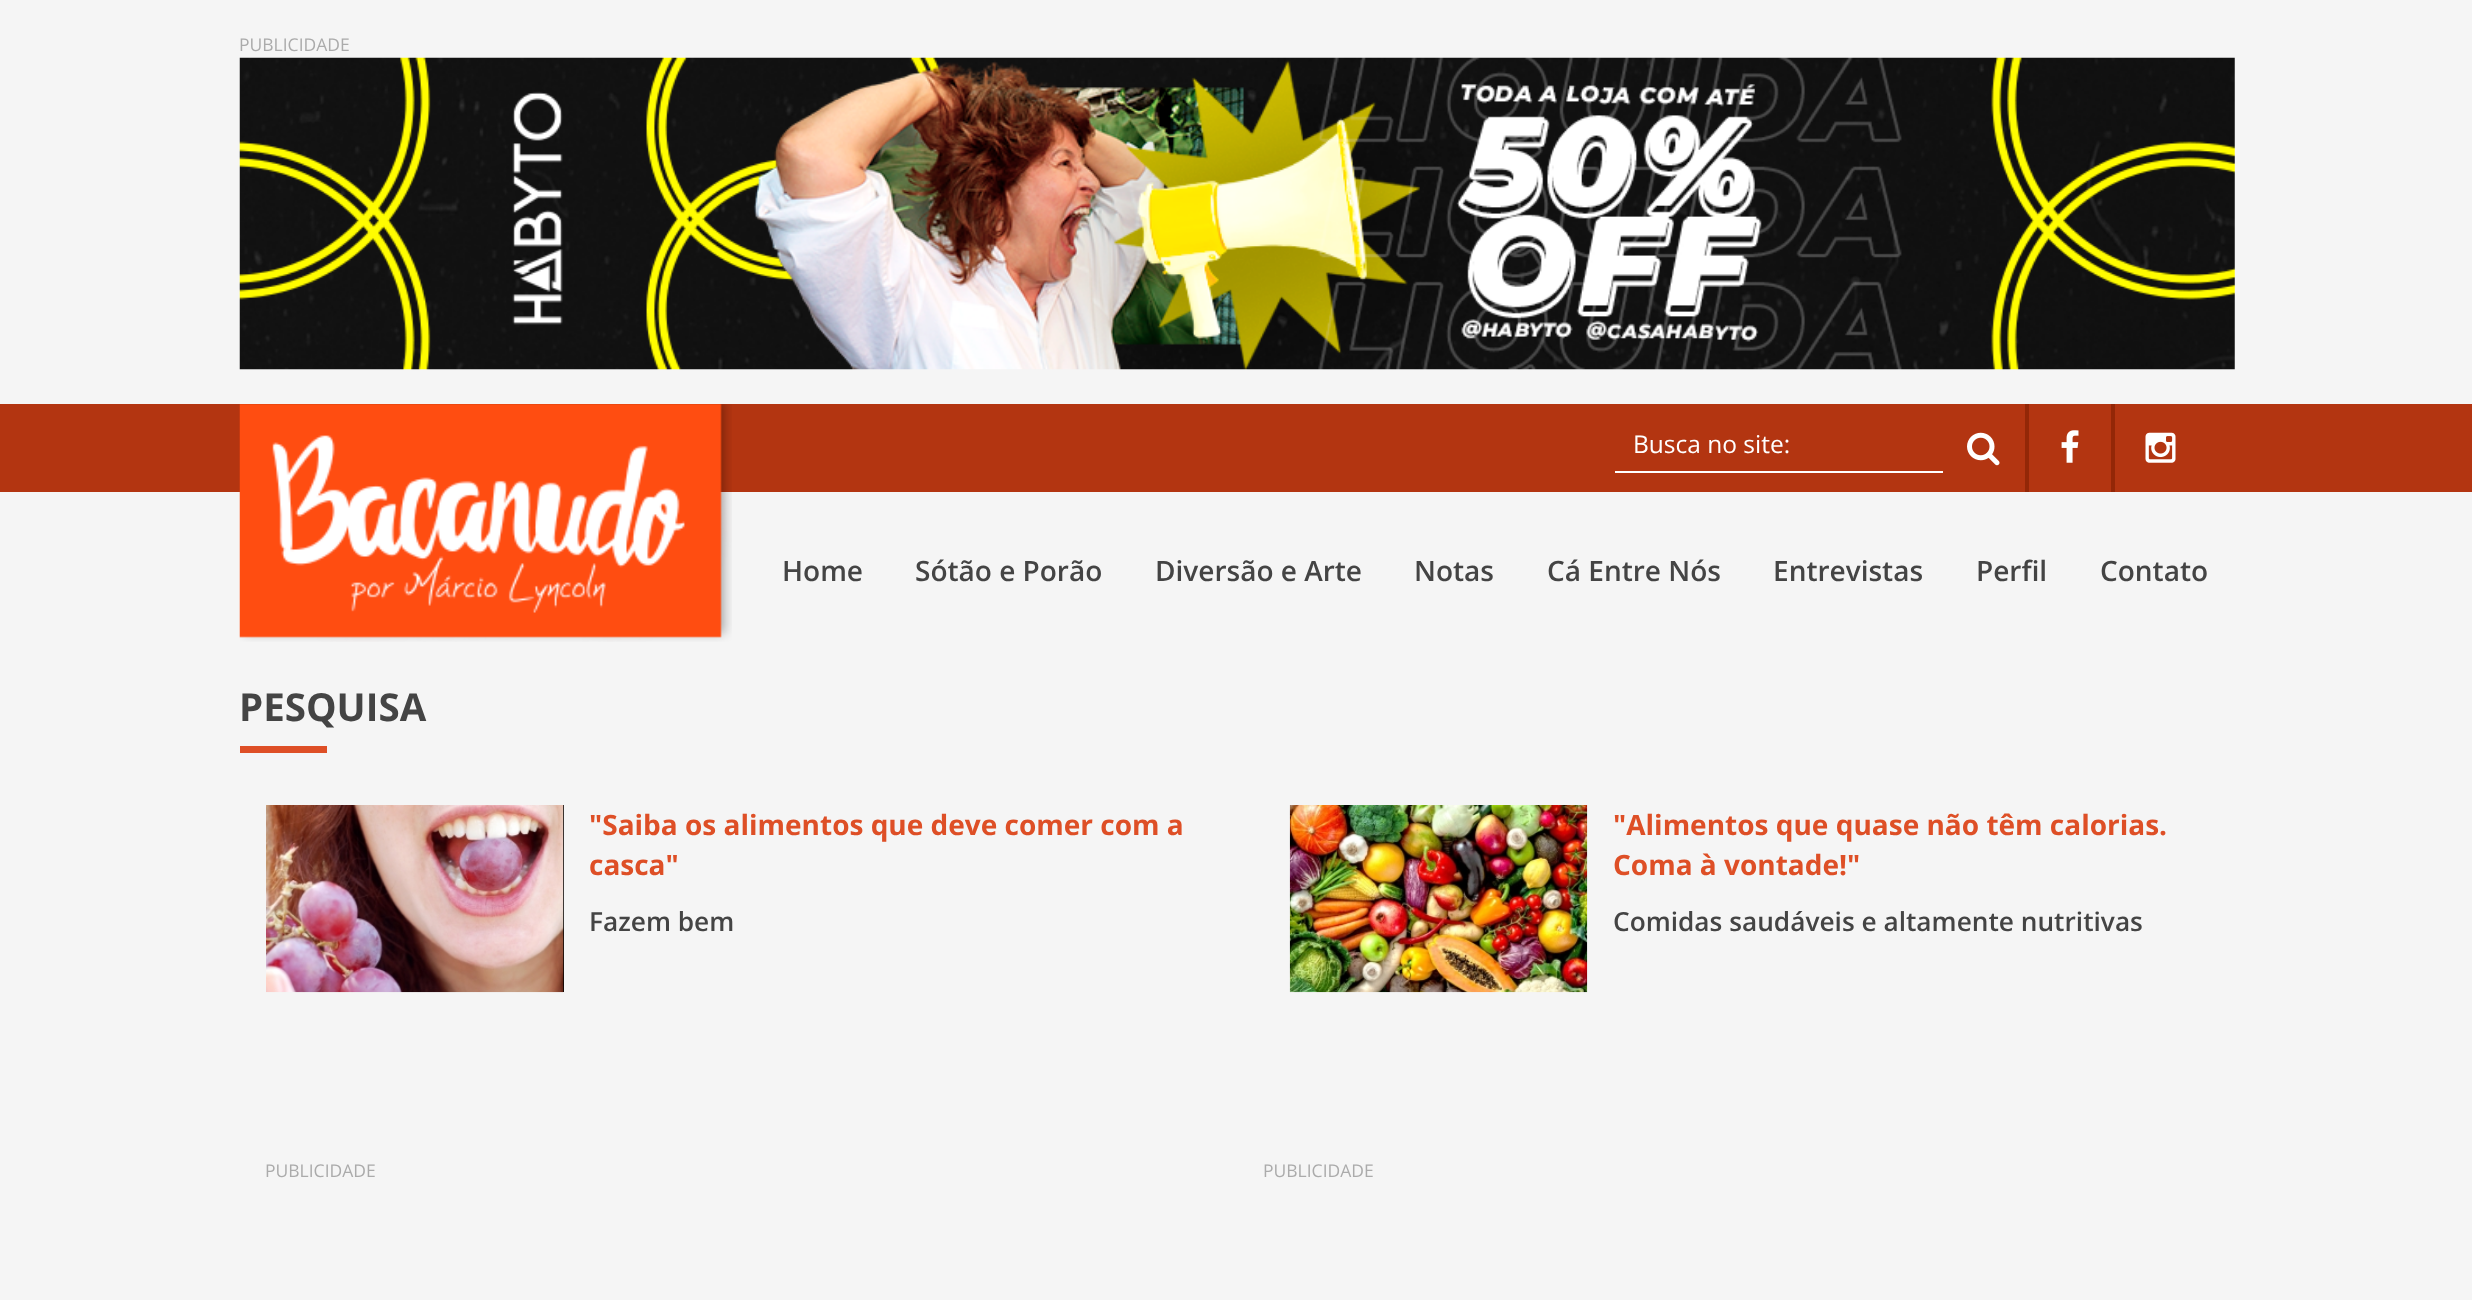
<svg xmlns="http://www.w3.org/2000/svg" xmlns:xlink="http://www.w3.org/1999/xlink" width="2472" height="1300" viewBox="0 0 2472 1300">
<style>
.cls-1{font:17.5px Open Sans;fill:#ababab}
.cls-2{font:24.5px Open Sans;fill:#ffffff}
.cls-3{font:600 28px Open Sans;fill:#444444}
.cls-4{font:bold 38.5px Open Sans;fill:#444444}
.cls-5{font:bold 28px Open Sans;fill:#de4f26}
.cls-6{font:600 26.25px Open Sans;fill:#444444}
</style>
<rect width="100%" height="100%" fill="#f5f5f5"/>
<image xlink:href="image0.png" x="239" y="57" width="1996" height="313"/>
<rect fill="#b33511" x="0" y="404" width="2472" height="88"/>
<rect fill="#932707" x="2025" y="404" width="4" height="88"/>
<rect fill="#ffffff" x="1615" y="471" width="328" height="2"/>
<image xlink:href="image1.png" x="1967" y="432" width="33" height="34"/>
<rect fill="#932707" x="2111" y="404" width="4" height="88"/>
<image xlink:href="image2.png" x="2061" y="430" width="18" height="33"/>
<image xlink:href="image3.png" x="2145" y="432" width="31" height="31"/>
<image xlink:href="image4.png" x="239" y="404" width="493" height="238"/>
<rect fill="#de4f26" x="240" y="746" width="87" height="7"/>
<rect fill="#000000" x="563" y="805" width="1" height="187"/>
<image xlink:href="image5.png" x="266" y="805" width="298" height="188"/>
<image xlink:href="image6.png" x="1289" y="805" width="299" height="188"/>
<text class="cls-1" x="239" y="51">PUBLICIDADE</text>
<text class="cls-2" x="1633" y="453">Busca no site:</text>
<text class="cls-3" x="782" y="581">Home</text>
<text class="cls-3" x="915" y="581">Sótão e Porão</text>
<text class="cls-3" x="1155" y="581">Diversão e Arte</text>
<text class="cls-3" x="1414" y="581">Notas</text>
<text class="cls-3" x="1547" y="581">Cá Entre Nós</text>
<text class="cls-3" x="1773" y="581">Entrevistas</text>
<text class="cls-3" x="1976" y="581">Perfil</text>
<text class="cls-3" x="2100" y="581">Contato</text>
<text class="cls-4" x="239" y="721">PESQUISA</text>
<text class="cls-5"><tspan x="589" y="835">"Saiba os alimentos que deve comer com a</tspan><tspan x="589" y="875">casca"</tspan></text>
<text class="cls-6" x="589" y="931">Fazem bem</text>
<text class="cls-5"><tspan x="1613" y="835">"Alimentos que quase não têm calorias.</tspan><tspan x="1613" y="875">Coma à vontade!"</tspan></text>
<text class="cls-6" x="1613" y="931">Comidas saudáveis e altamente nutritivas</text>
<text class="cls-1" x="265" y="1177">PUBLICIDADE</text>
<text class="cls-1" x="1263" y="1177">PUBLICIDADE</text>
</svg>
